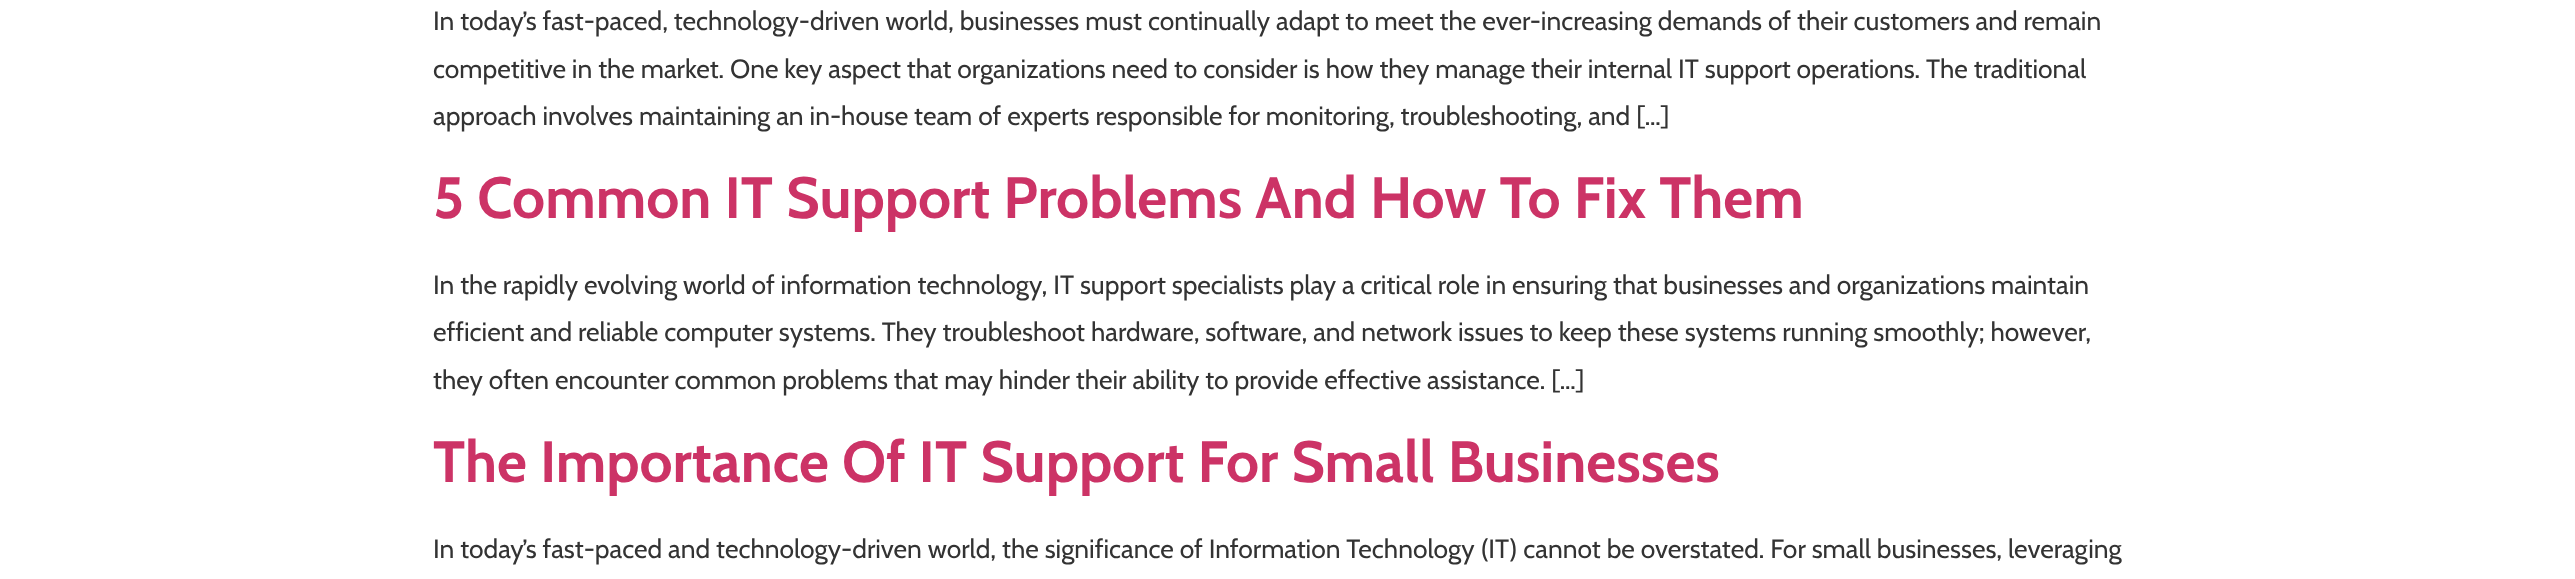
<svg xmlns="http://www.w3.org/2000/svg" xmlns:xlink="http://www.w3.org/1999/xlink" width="2575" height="579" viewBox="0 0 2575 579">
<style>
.cls-1{font:26.4px Cabin;fill:#333333}
.cls-2{font:bold 58.1px Cabin;fill:#cc3366}
</style>
<rect width="100%" height="100%" fill="#ffffff"/>
<text class="cls-1"><tspan x="433" y="30">In today’s fast-paced, technology-driven world, businesses must continually adapt to meet the ever-increasing demands of their customers and remain</tspan><tspan x="433" y="78">competitive in the market. One key aspect that organizations need to consider is how they manage their internal IT support operations. The traditional</tspan><tspan x="433" y="125">approach involves maintaining an in-house team of experts responsible for monitoring, troubleshooting, and […]</tspan></text>
<text class="cls-2" x="433" y="218">5 Common IT Support Problems And How To Fix Them</text>
<text class="cls-1"><tspan x="433" y="294">In the rapidly evolving world of information technology, IT support specialists play a critical role in ensuring that businesses and organizations maintain</tspan><tspan x="433" y="341">efficient and reliable computer systems. They troubleshoot hardware, software, and network issues to keep these systems running smoothly; however,</tspan><tspan x="433" y="389">they often encounter common problems that may hinder their ability to provide effective assistance. […]</tspan></text>
<text class="cls-2" x="433" y="482">The Importance Of IT Support For Small Businesses</text>
<text class="cls-1" x="433" y="558">In today’s fast-paced and technology-driven world, the significance of Information Technology (IT) cannot be overstated. For small businesses, leveraging</text>
</svg>
